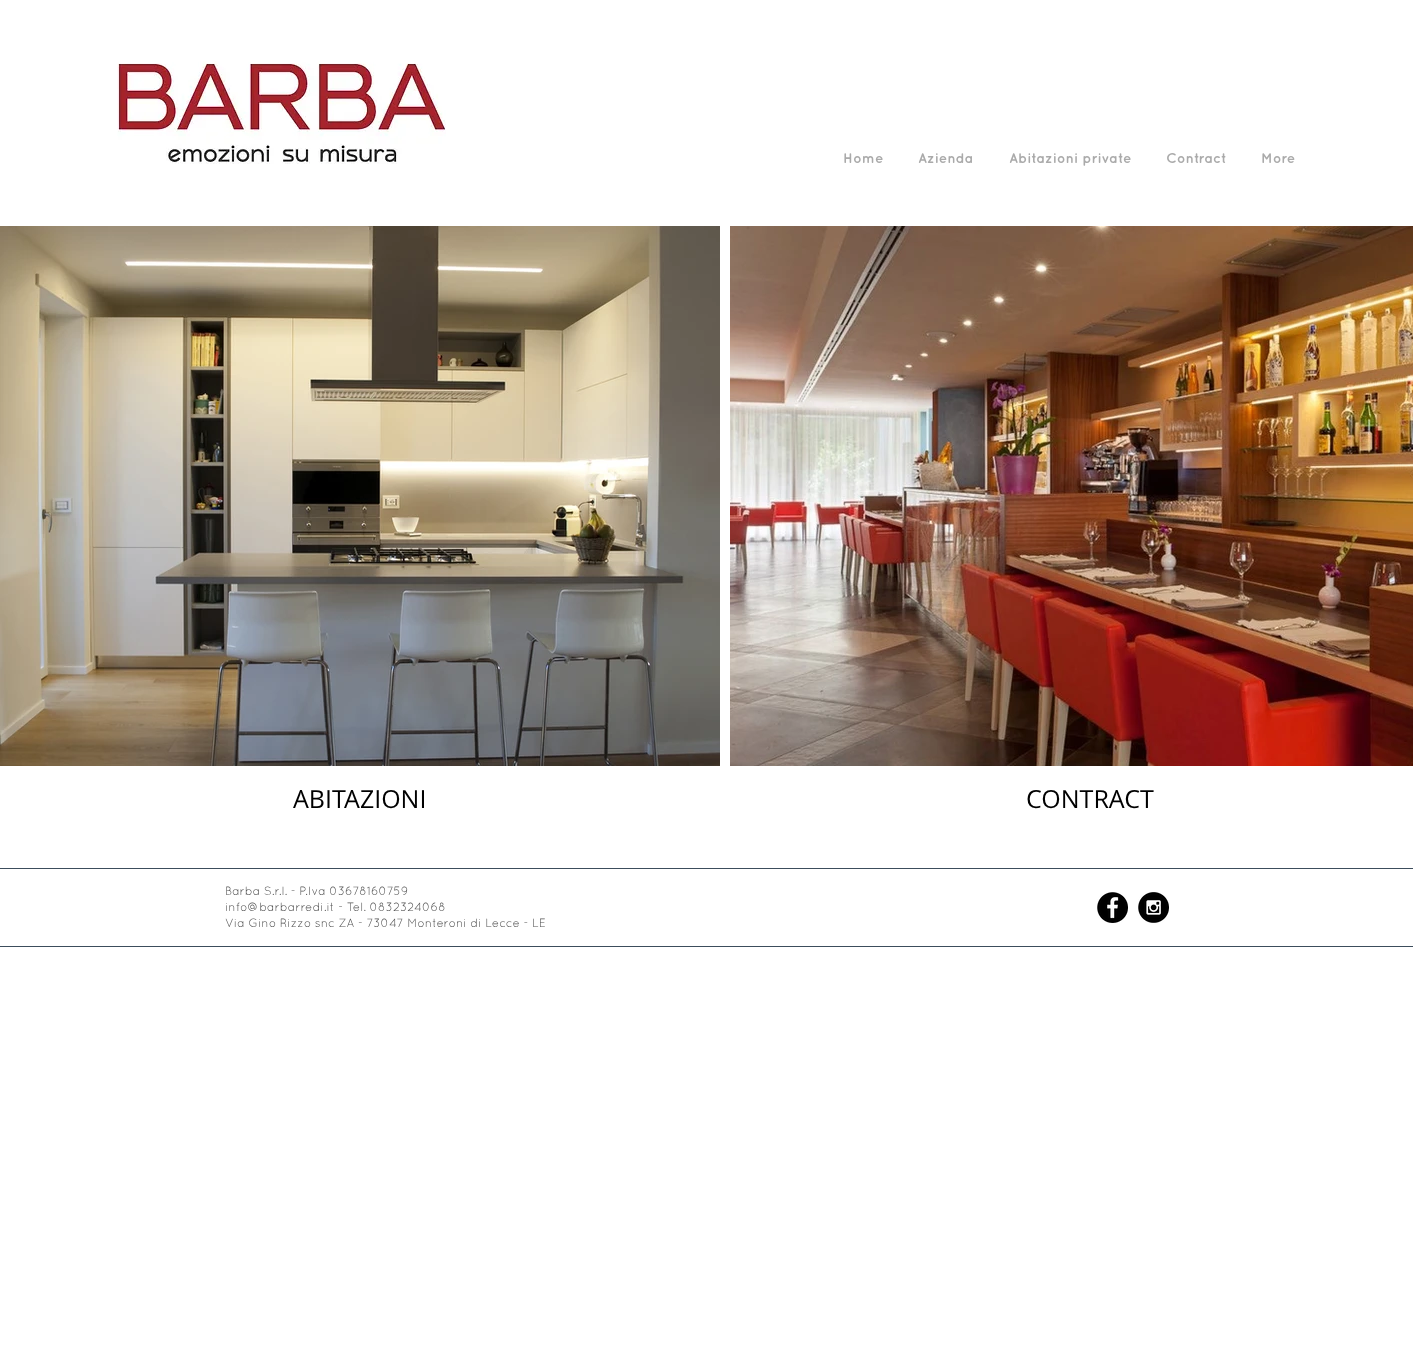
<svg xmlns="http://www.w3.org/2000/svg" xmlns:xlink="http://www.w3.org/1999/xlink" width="1413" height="1345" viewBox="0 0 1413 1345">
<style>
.cls-1{font:bold 14px Quicksand;fill:#aaaaaa}
.cls-2{font:25px Open Sans;fill:#000000}
.cls-3{font:12px Quicksand;fill:#555555}
</style>
<rect width="100%" height="100%" fill="#ffffff"/>
<image xlink:href="image0.png" x="117" y="61" width="329" height="103"/>
<image xlink:href="image1.png" x="0" y="226" width="720" height="540"/>
<image xlink:href="image2.png" x="730" y="226" width="683" height="540"/>
<rect fill="#3c4d5c" x="0" y="868" width="1413" height="1"/>
<image xlink:href="image3.png" x="1097" y="892" width="31" height="31"/>
<image xlink:href="image4.png" x="1138" y="892" width="31" height="31"/>
<rect fill="#3c4d5c" x="0" y="946" width="1413" height="1"/>
<text class="cls-1" x="843" y="163">Home</text>
<text class="cls-1" x="918" y="163">Azienda</text>
<text class="cls-1" x="1009" y="163">Abitazioni private</text>
<text class="cls-1" x="1166" y="163">Contract</text>
<text class="cls-1" x="1261" y="163">More</text>
<text class="cls-2" x="293" y="808">ABITAZIONI</text>
<text class="cls-2" x="1026" y="808">CONTRACT</text>
<text class="cls-3"><tspan x="225" y="895">Barba S.r.l. - P.Iva 03678160759</tspan><tspan x="225" y="911">info@barbarredi.it - Tel. 0832324068</tspan><tspan x="225" y="927">Via Gino Rizzo snc ZA - 73047 Monteroni di Lecce - LE</tspan></text>
</svg>
